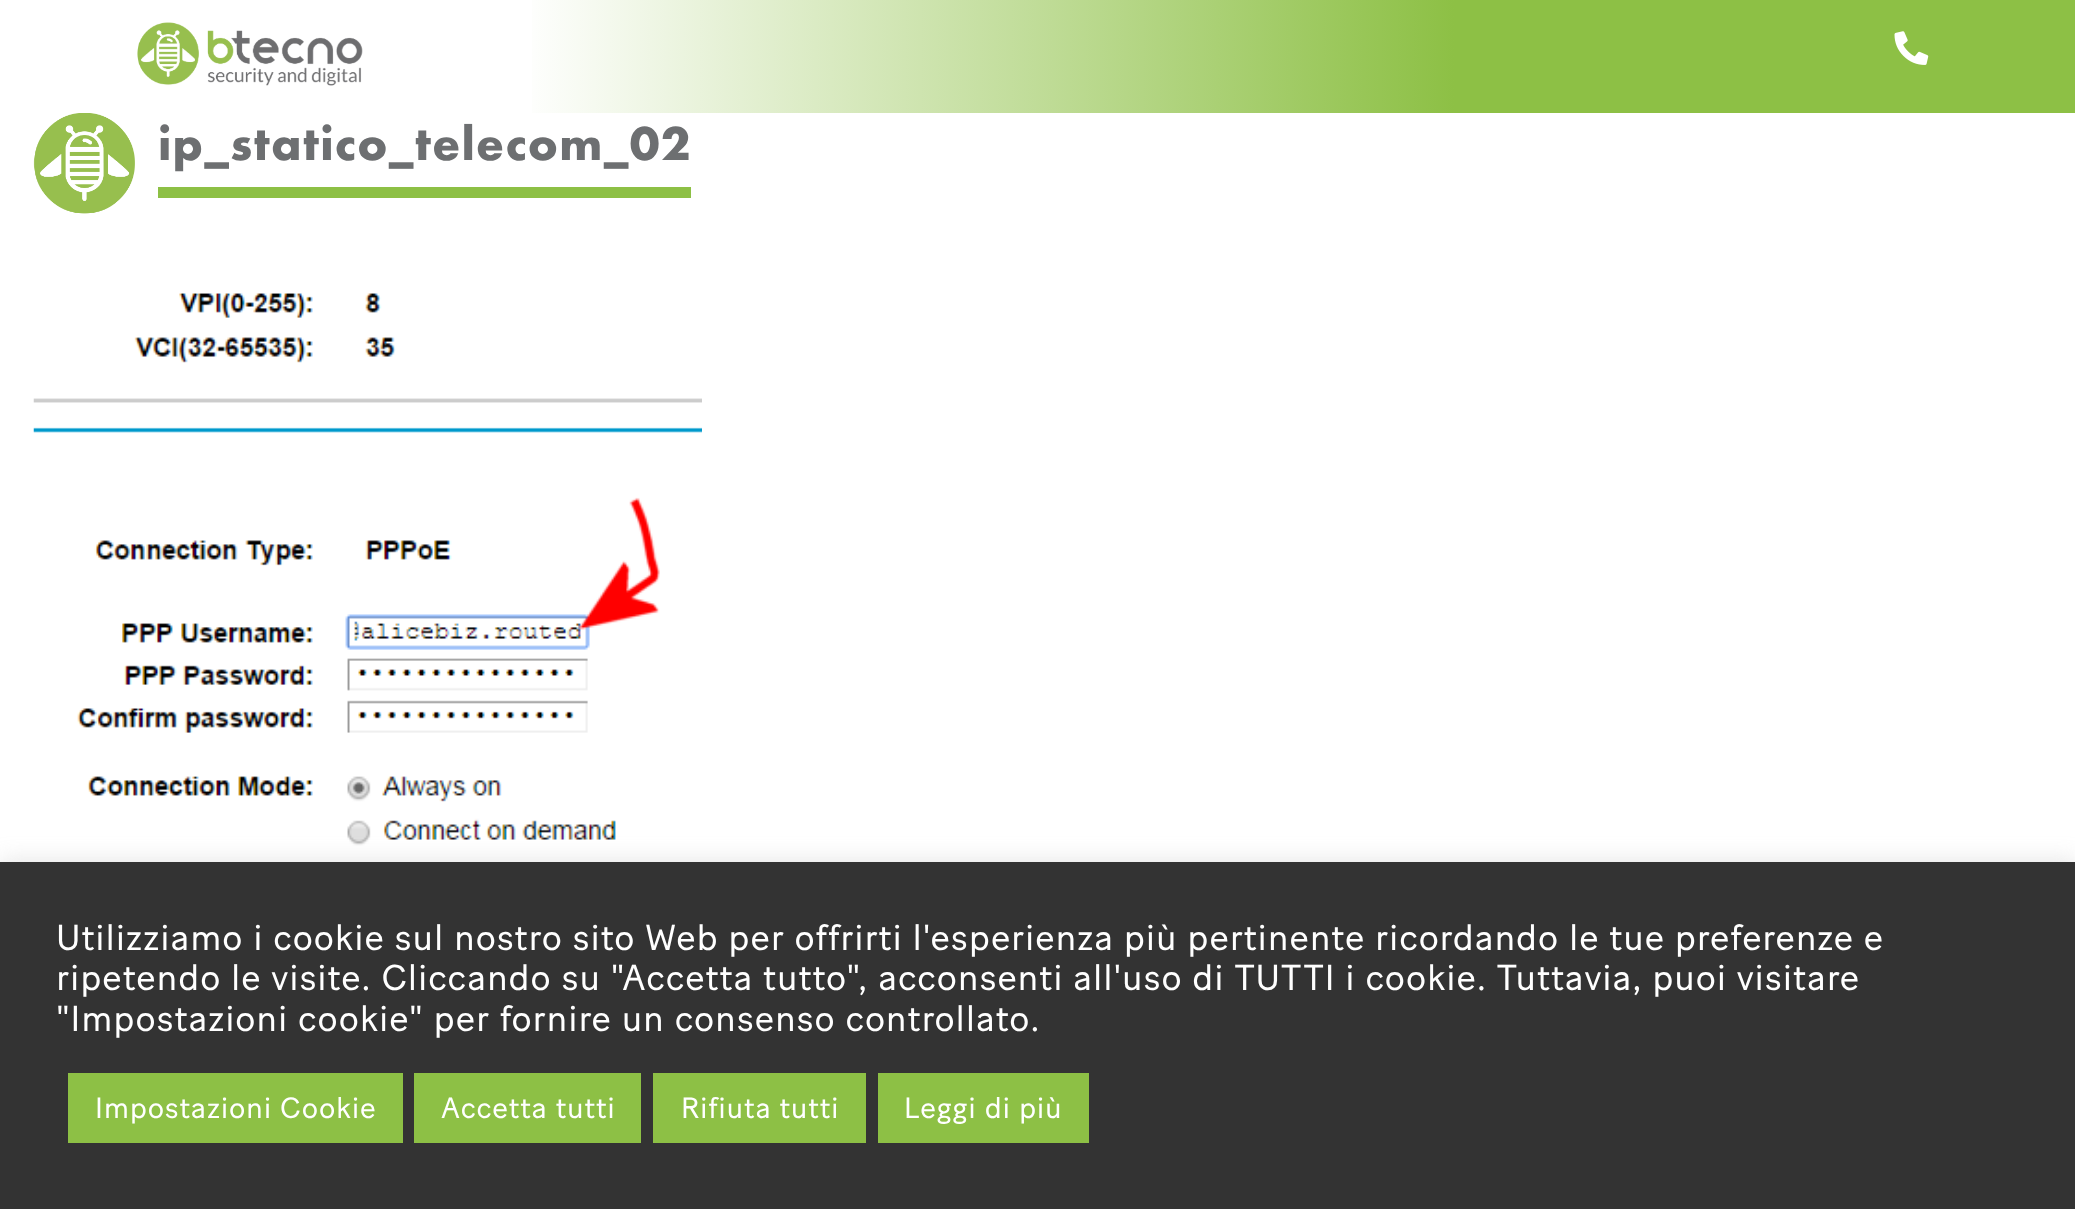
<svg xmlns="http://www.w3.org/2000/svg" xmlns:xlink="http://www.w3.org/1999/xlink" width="2075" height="1209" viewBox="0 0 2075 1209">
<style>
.cls-1{font:bold 49.5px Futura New;letter-spacing:1.25px;fill:#6d6f71}
.cls-2{font:36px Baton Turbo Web;letter-spacing:0.9px;fill:#ffffff}
.cls-3{font:29.25px Baton Turbo Web;letter-spacing:0.75px;fill:#ffffff}
</style>
<defs>
<linearGradient id="g1" gradientUnits="userSpaceOnUse" x1="0" y1="56" x2="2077" y2="56"><stop offset="0.25" stop-color="#ffffff"/><stop offset="0.7" stop-color="#8dc045"/></linearGradient>
</defs>
<rect width="100%" height="100%" fill="#ffffff"/>
<rect fill="url(#g1)" x="532" y="0" width="1543" height="113"/>
<image xlink:href="image0.png" x="137" y="22" width="226" height="64"/>
<image xlink:href="image1.png" x="1894" y="31" width="35" height="34"/>
<image xlink:href="image2.png" x="33" y="113" width="102" height="101"/>
<rect fill="#8dc045" x="158" y="187" width="533" height="11"/>
<image xlink:href="image3.png" x="33" y="293" width="669" height="569"/>
<rect fill="#acabab" fill-opacity="0.3" filter="blur(11px)" x="0" y="860" width="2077" height="348"/>
<rect fill="#333333" x="0" y="862" width="2075" height="347"/>
<rect fill="#8dc045" x="68" y="1073" width="335" height="70"/>
<rect fill="#8dc045" x="414" y="1073" width="227" height="70"/>
<rect fill="#8dc045" x="653" y="1073" width="213" height="70"/>
<rect fill="#8dc045" x="878" y="1073" width="211" height="70"/>
<text class="cls-1" x="158" y="160">ip_statico_telecom_02</text>
<text class="cls-2"><tspan x="56" y="950">Utilizziamo i cookie sul nostro sito Web per offrirti l'esperienza più pertinente ricordando le tue preferenze e</tspan><tspan x="56" y="990">ripetendo le visite. Cliccando su "Accetta tutto", acconsenti all'uso di TUTTI i cookie. Tuttavia, puoi visitare</tspan><tspan x="56" y="1031">"Impostazioni cookie" per fornire un consenso controllato.</tspan></text>
<text class="cls-3" x="95" y="1118">Impostazioni Cookie</text>
<text class="cls-3" x="441" y="1118">Accetta tutti</text>
<text class="cls-3" x="681" y="1118">Rifiuta tutti</text>
<text class="cls-3" x="904" y="1118">Leggi di più</text>
</svg>
